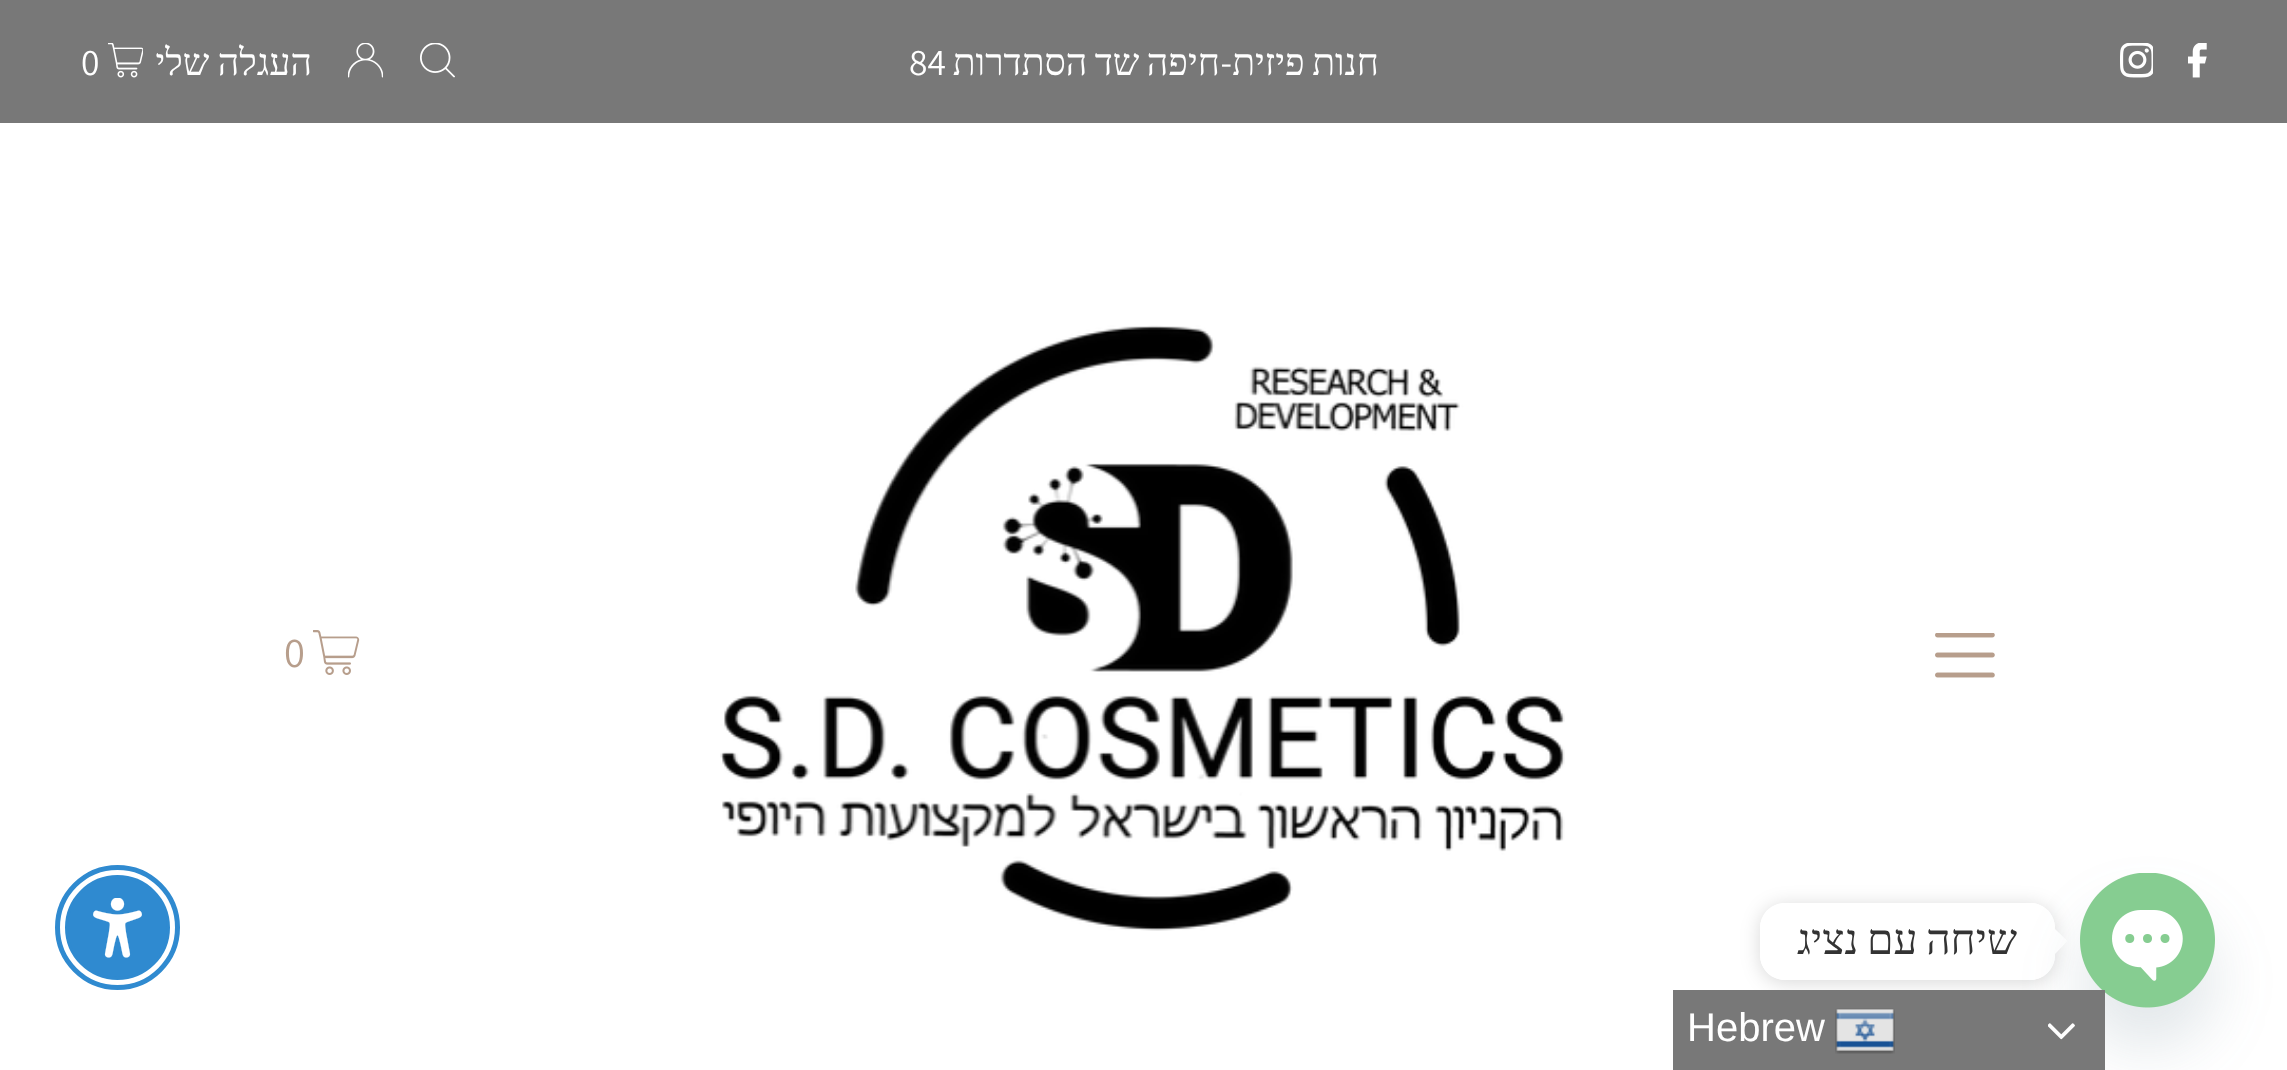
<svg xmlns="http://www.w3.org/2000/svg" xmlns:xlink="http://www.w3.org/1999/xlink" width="2287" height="1070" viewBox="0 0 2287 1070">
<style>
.cls-1{font:37.5px Liberation Serif;direction:rtl;fill:#ffffff}
.cls-2{font:37.5px Assistant;direction:rtl;fill:#ffffff}
.cls-3{font:37.5px Assistant;fill:#ffffff}
.cls-4{font:42.5px Assistant;fill:#b79e8c}
.cls-5{font:42.5px Liberation Serif;direction:rtl;fill:#333333}
.cls-6{font:40px Liberation Sans;fill:#ffffff}
</style>
<defs>
<clipPath id="clip1"><path d="M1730 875H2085V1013H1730ZM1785 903H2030C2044 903 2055 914 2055 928V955C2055 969 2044 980 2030 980H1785C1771 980 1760 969 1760 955V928C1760 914 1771 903 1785 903Z" clip-rule="evenodd"/></clipPath>
</defs>
<rect width="100%" height="100%" fill="#787878"/>
<image xlink:href="image0.png" x="2188" y="43" width="19" height="35"/>
<image xlink:href="image1.png" x="2120" y="43" width="33" height="35"/>
<image xlink:href="image2.png" x="420" y="43" width="35" height="35"/>
<image xlink:href="image3.png" x="348" y="43" width="35" height="35"/>
<image xlink:href="image4.png" x="108" y="43" width="35" height="35"/>
<rect fill="#ffffff" x="0" y="123" width="2287" height="947"/>
<image xlink:href="image5.png" x="1935" y="633" width="60" height="45"/>
<image xlink:href="image6.png" x="720" y="325" width="845" height="606"/>
<image xlink:href="image7.png" x="313" y="630" width="47" height="45"/>
<g clip-path="url(#clip1)">
<rect fill="#000000" fill-opacity="0.15" filter="blur(9.5px)" x="1760" y="905" width="295" height="78" rx="25"/>
</g>
<rect fill="#ffffff" x="1760" y="903" width="295" height="77" rx="25"/>
<path fill="#ffffff" d="M2055 954V929L2067.5 941Z"/>
<rect fill="#49687e" fill-opacity="0.16" filter="blur(30px)" x="2080" y="913" width="135" height="135" rx="67.5"/>
<image xlink:href="image8.png" x="2080" y="873" width="135" height="135"/>
<circle fill="none" stroke="#2f8ad0" stroke-width="5" cx="117.5" cy="927.5" r="60"/>
<circle fill="#2f8ad0" stroke="#2f8ad0" stroke-width="3" cx="117.5" cy="927.5" r="51"/>
<image xlink:href="image9.png" x="93" y="898" width="49" height="60"/>
<rect fill="#787878" x="1673" y="990" width="432" height="80"/>
<image xlink:href="image10.png" x="2048" y="1023" width="27" height="17"/>
<image xlink:href="image11.png" x="1835" y="1008" width="60" height="46"/>
<text class="cls-1" x="1379" y="75" word-spacing="-2">חנות פיזית</text>
<text class="cls-2" x="1232" y="75">-</text>
<text class="cls-1" x="1220" y="75" word-spacing="-2">חיפה שד הסתדרות</text>
<text class="cls-3" x="909" y="75">84</text>
<text class="cls-1" x="312" y="75" word-spacing="-1">העגלה שלי</text>
<text class="cls-3" x="81" y="75">0</text>
<text class="cls-4" x="284" y="667">0</text>
<text class="cls-5" x="2017" y="954" word-spacing="-2">שיחה עם נציג</text>
<text class="cls-6" x="1687" y="1041">Hebrew</text>
</svg>
